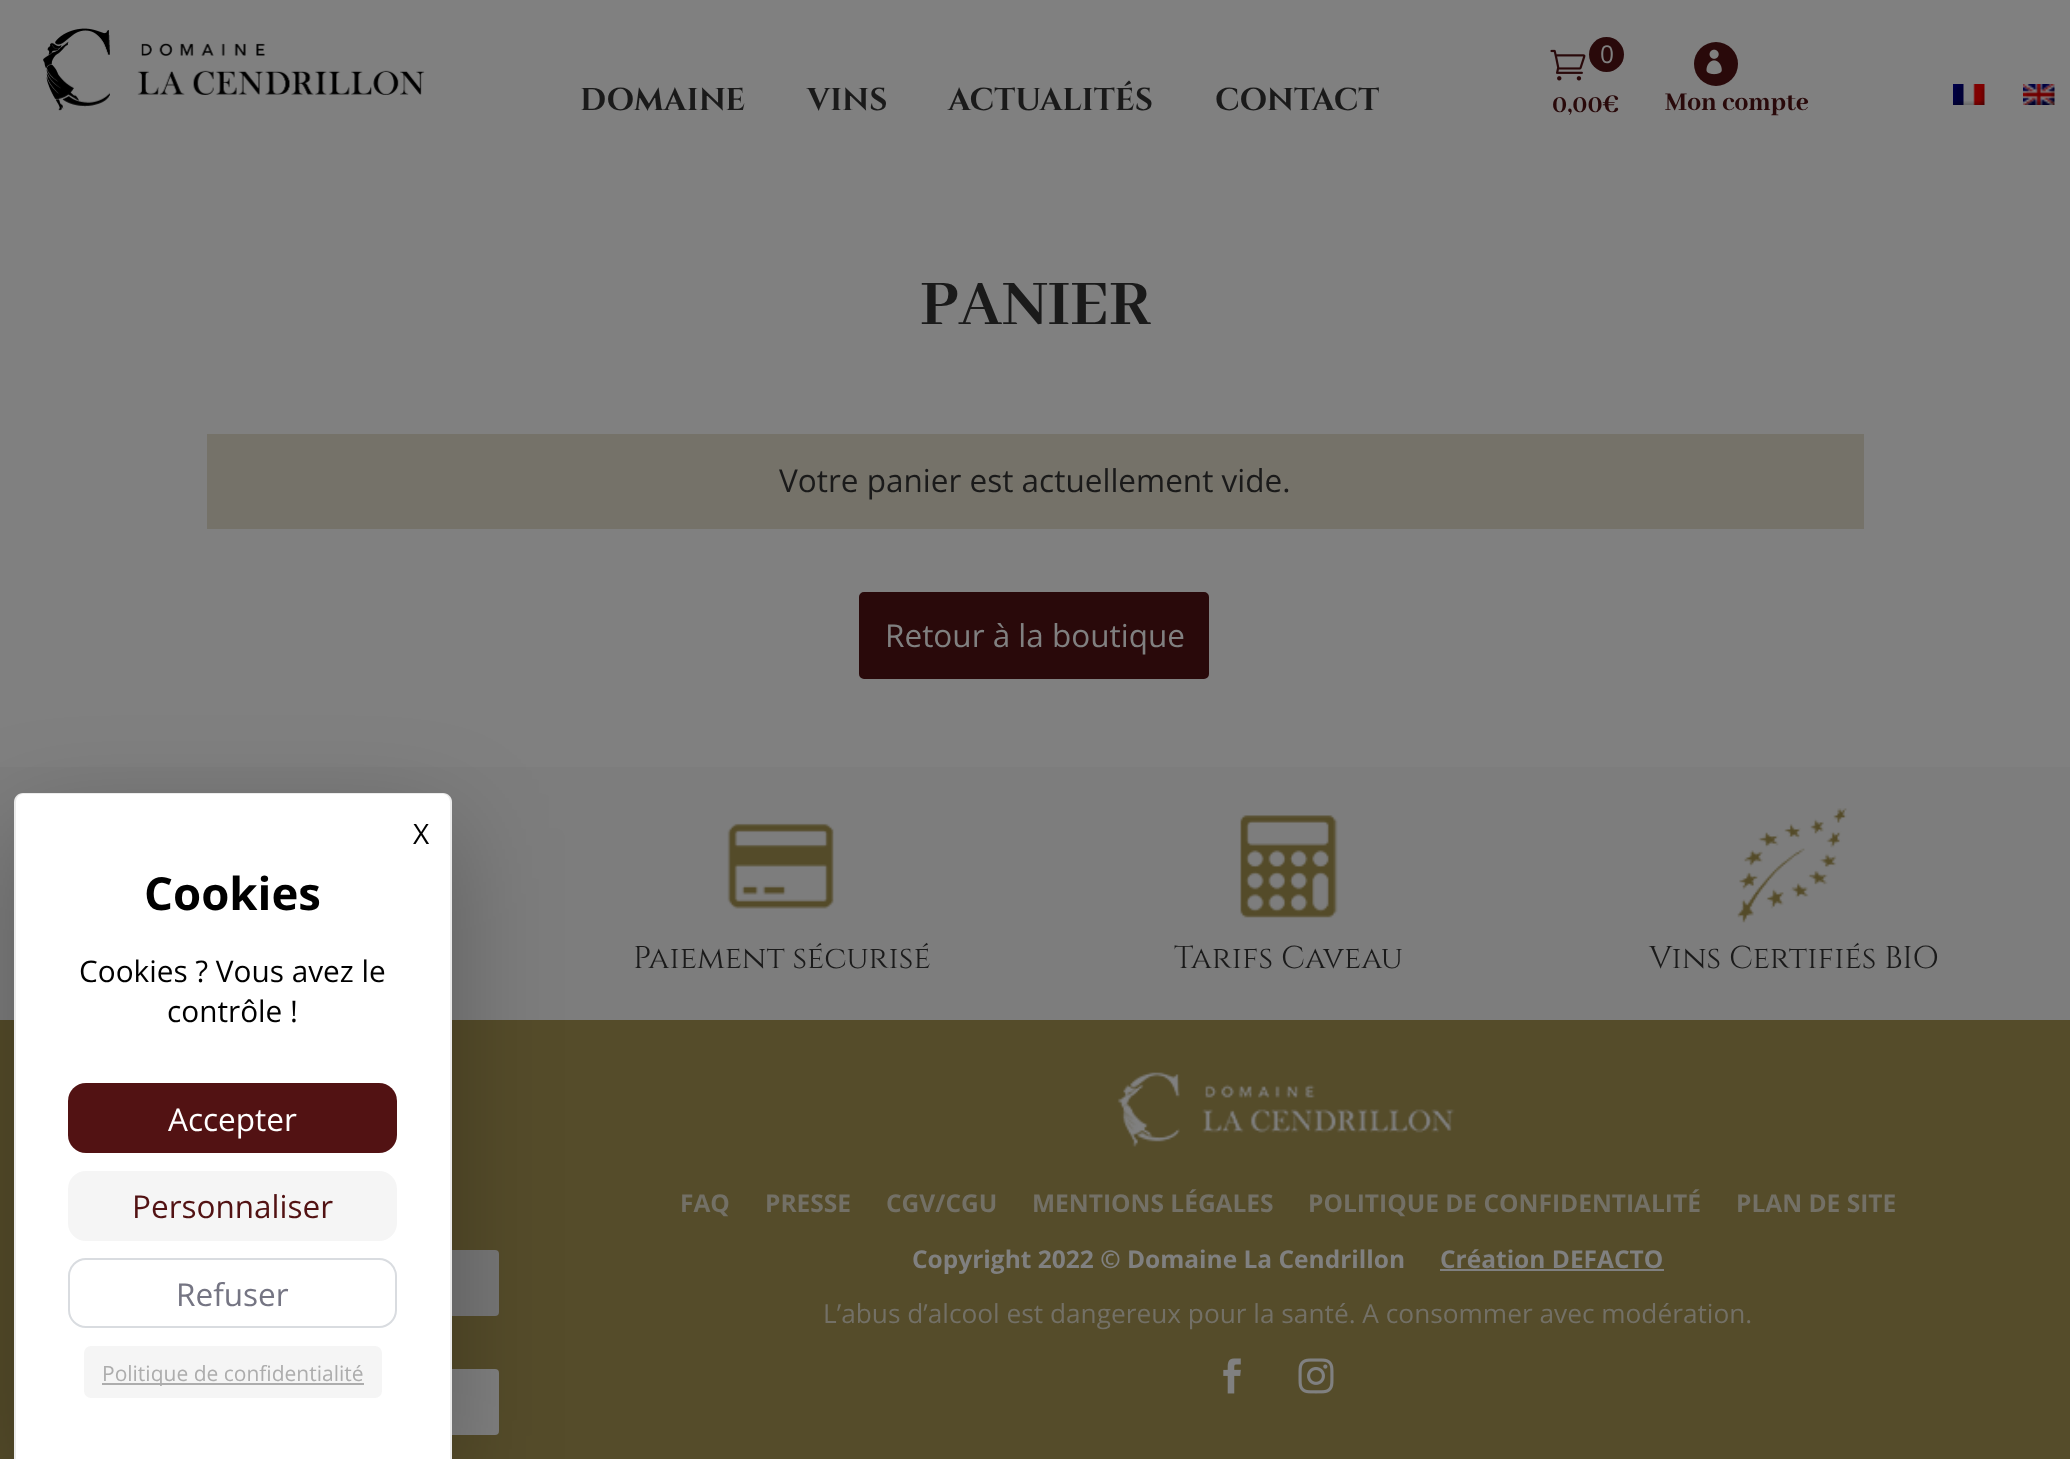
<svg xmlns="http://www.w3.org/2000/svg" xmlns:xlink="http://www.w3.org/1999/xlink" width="2070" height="1459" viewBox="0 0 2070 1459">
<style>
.cls-1{font:28px Open Sans;fill:#000000}
.cls-2{font:bold 45.5px Open Sans;fill:#000000}
.cls-3{font:29.75px Open Sans;fill:#000000}
.cls-4{font:31.5px Open Sans;fill:#ffffff}
.cls-5{font:31.5px Open Sans;fill:#521213}
.cls-6{font:31.5px Open Sans;fill:#757583}
.cls-7{font:21px Open Sans;fill:#adadad}
.cls-8{font:bold 31.5px Cinzel;fill:#1a1a1a}
.cls-9{font:24.5px Open Sans;fill:#808080}
.cls-10{font:bold 28px Abhaya Libre;fill:#29090a}
.cls-11{font:800 28px Abhaya Libre ExtraBold;fill:#29090a}
.cls-12{font:bold 70px Abhaya Libre;fill:#1a1a1a}
.cls-13{font:31.5px Open Sans;fill:#1a1a1a}
.cls-14{font:31.5px Open Sans;fill:#808080}
.cls-15{font:31.5px Cinzel;fill:#1a1a1a}
.cls-16{font:bold 24.5px Open Sans;fill:#737066}
.cls-17{font:bold 24.5px Open Sans;fill:#808080}
.cls-18{font:26.25px Open Sans;fill:#737066}
</style>
<rect width="100%" height="100%" fill="#808080"/>
<rect fill="#7d7d7d" x="0" y="767" width="2070" height="253"/>
<rect fill="#554c2a" x="0" y="1020" width="2070" height="439"/>
<rect fill="#777777" x="53" y="1250" width="446" height="66" rx="4"/>
<rect fill="#808080" x="53" y="1369" width="446" height="66" rx="4"/>
<rect fill="#000000" fill-opacity="0.25" filter="blur(52.5px)" x="14" y="828" width="438" height="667" rx="9"/>
<path fill="#ffffff" d="M23 793H443C448 793 452 797 452 802V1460H14V802C14 797 18 793 23 793Z"/>
<path fill="#000000" fill-opacity="0.08" fill-rule="evenodd" d="M23 793H443C448 793 452 797 452 802V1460H14V802C14 797 18 793 23 793ZM23 794H443C447 794 450 798 450 802V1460H16V802C16 798 19 794 23 794Z"/>
<rect fill="#521213" x="68" y="1083" width="329" height="70" rx="18"/>
<rect fill="#f5f5f5" x="68" y="1171" width="329" height="70" rx="18"/>
<rect fill="none" stroke="#d9dce0" stroke-width="2" x="69" y="1259" width="327" height="68" rx="17"/>
<rect fill="#f5f5f5" x="84" y="1346" width="298" height="52" rx="7"/>
<rect fill="#adadad" x="102" y="1383" width="262" height="2"/>
<image xlink:href="image0.png" x="43" y="28" width="382" height="83"/>
<image xlink:href="image1.png" x="1550" y="49" width="36" height="32"/>
<circle fill="#29090a" cx="1606.5" cy="54.5" r="17.5"/>
<circle fill="#29090a" cx="1716" cy="64" r="22"/>
<image xlink:href="image2.png" x="1706" y="49" width="16" height="26"/>
<image xlink:href="image3.png" x="1953" y="84" width="32" height="21"/>
<image xlink:href="image4.png" x="2023" y="84" width="32" height="21"/>
<rect fill="#757269" x="207" y="434" width="1657" height="95"/>
<rect fill="#29090a" stroke="#29090a" stroke-width="4" x="861" y="594" width="346" height="83" rx="3"/>
<image xlink:href="image5.png" x="727" y="823" width="107" height="86"/>
<image xlink:href="image6.png" x="1240" y="815" width="98" height="103"/>
<image xlink:href="image7.png" x="1737" y="808" width="110" height="115"/>
<image xlink:href="image8.png" x="1117" y="1072" width="338" height="75"/>
<rect fill="#808080" x="1440" y="1269" width="224" height="2"/>
<image xlink:href="image9.png" x="1223" y="1358" width="18" height="36"/>
<image xlink:href="image10.png" x="1298" y="1358" width="36" height="36"/>
<text class="cls-1" x="413" y="844">X</text>
<text class="cls-2" x="144" y="910">Cookies</text>
<text class="cls-3" x="79" y="982">Cookies ? Vous avez le</text>
<text class="cls-3" x="167" y="1022">contrôle !</text>
<text class="cls-4" x="168" y="1131">Accepter</text>
<text class="cls-5" x="132" y="1218">Personnaliser</text>
<text class="cls-6" x="176" y="1306">Refuser</text>
<text class="cls-7" x="102" y="1381">Politique de confidentialité</text>
<text class="cls-8" x="580" y="110">DOMAINE</text>
<text class="cls-8" x="807" y="110">VINS</text>
<text class="cls-8" x="948" y="110">ACTUALITÉS</text>
<text class="cls-8" x="1215" y="110">CONTACT</text>
<text class="cls-9" x="1600" y="63">0</text>
<text class="cls-10" x="1552" y="112">0,00€</text>
<text class="cls-11" x="1665" y="110">Mon compte</text>
<text class="cls-12" x="920" y="324">PANIER</text>
<text class="cls-13" x="779" y="492">Votre panier est actuellement vide.</text>
<text class="cls-14" x="885" y="647">Retour à la boutique</text>
<text class="cls-15" x="633" y="968">Paiement sécurisé</text>
<text class="cls-15" x="1174" y="968">Tarifs Caveau</text>
<text class="cls-15" x="1649" y="968">Vins Certifiés BIO</text>
<text class="cls-16" x="680" y="1212">FAQ</text>
<text class="cls-16" x="765" y="1212">PRESSE</text>
<text class="cls-16" x="886" y="1212">CGV/CGU</text>
<text class="cls-16" x="1032" y="1212">MENTIONS LÉGALES</text>
<text class="cls-16" x="1308" y="1212">POLITIQUE DE CONFIDENTIALITÉ</text>
<text class="cls-16" x="1736" y="1212">PLAN DE SITE</text>
<text class="cls-17" x="912" y="1268">Copyright 2022 © Domaine La Cendrillon</text>
<text class="cls-17" x="1440" y="1268">Création DEFACTO</text>
<text class="cls-18" x="823" y="1323">L’abus d’alcool est dangereux pour la santé. A consommer avec modération.</text>
</svg>
